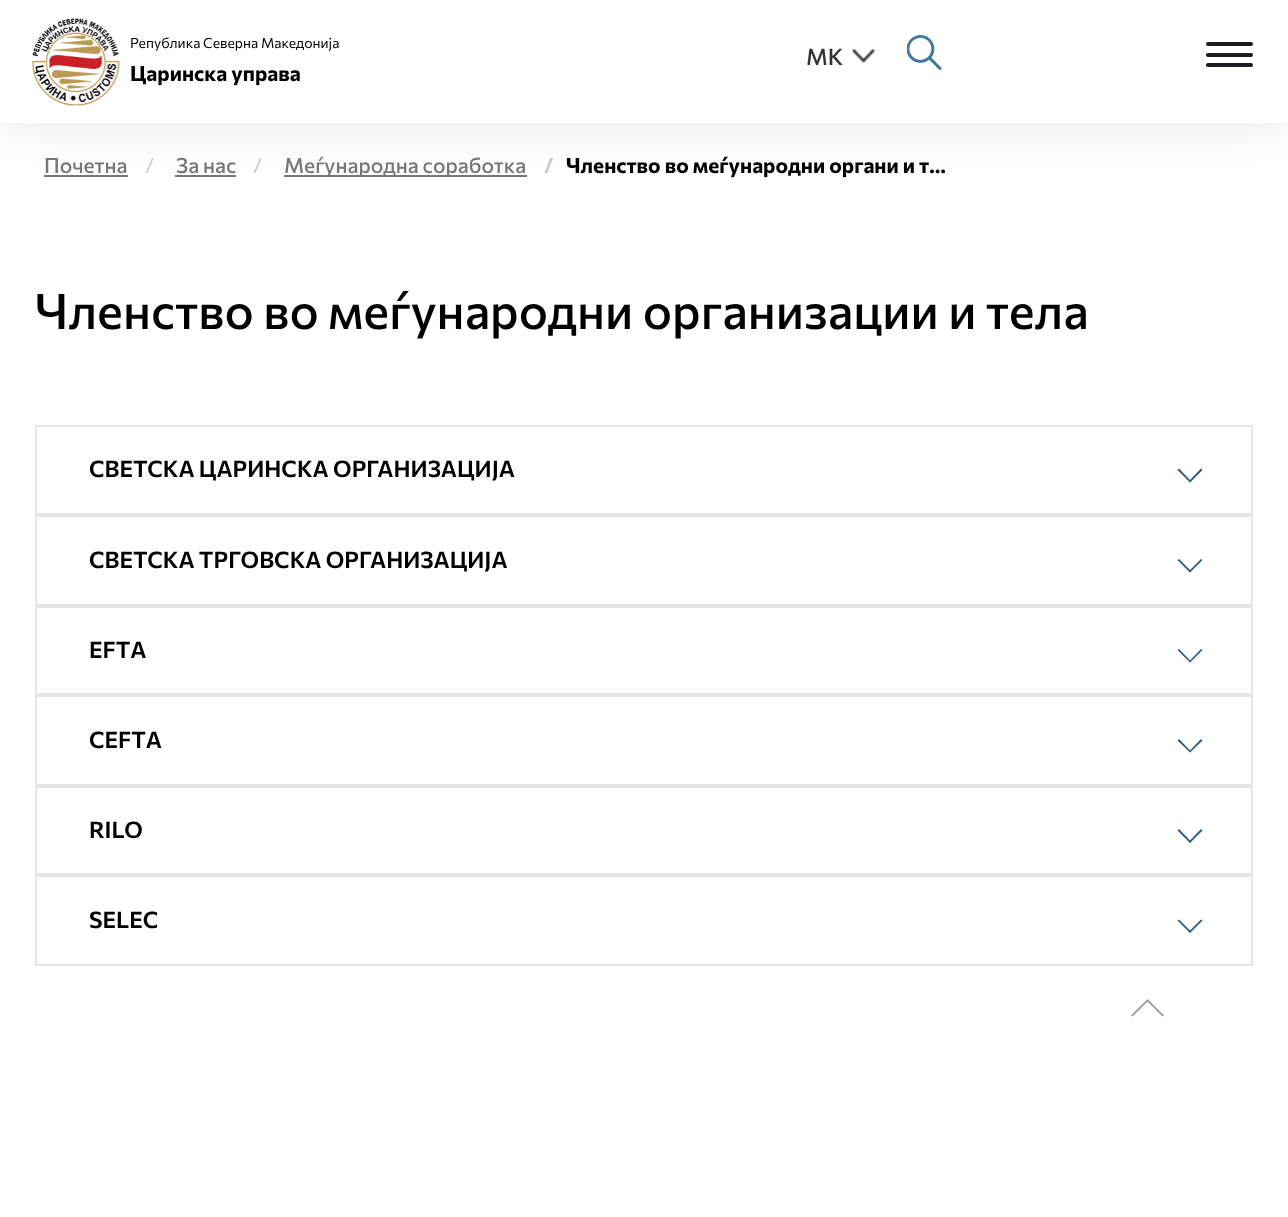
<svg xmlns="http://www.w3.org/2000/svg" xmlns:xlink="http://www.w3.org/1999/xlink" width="1288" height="1217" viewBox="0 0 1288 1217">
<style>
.cls-1{font:14px Commissioner;fill:#000000}
.cls-2{font:bold 21px Commissioner;fill:#000000}
.cls-3{font:500 22.75px Commissioner;fill:#333333}
.cls-4{font:500 21px Commissioner;fill:#777777}
.cls-5{font:21px Commissioner;fill:#cccccc}
.cls-6{font:bold 21px Commissioner;fill:#cccccc}
.cls-7{font:500 49px Commissioner;fill:#000000}
.cls-8{font:600 22.75px Commissioner;fill:#000000}
</style>
<rect width="100%" height="100%" fill="#ffffff"/>
<rect fill="#777777" x="44" y="175" width="84" height="2"/>
<rect fill="#777777" x="175" y="175" width="61" height="2"/>
<rect fill="#777777" x="284" y="175" width="243" height="2"/>
<rect fill="#1c1d23" fill-opacity="0.1" filter="blur(26px)" x="0" y="0" width="1288" height="123"/>
<rect fill="#ffffff" x="0" y="0" width="1288" height="123"/>
<image xlink:href="image0.png" x="27" y="18" width="98" height="88"/>
<image xlink:href="image1.png" x="852" y="49" width="24" height="14"/>
<image xlink:href="image2.png" x="907" y="35" width="35" height="35"/>
<rect fill="#1c1d23" x="1206" y="42" width="47" height="4" rx="2"/>
<rect fill="#1c1d23" x="1206" y="53" width="47" height="4" rx="2"/>
<rect fill="#1c1d23" x="1206" y="63" width="47" height="4" rx="2"/>
<rect fill="none" stroke="#e6e6e6" stroke-width="2" x="36" y="426" width="1216" height="88"/>
<path fill="#2c5d7d" d="M1201 468.5L1202.5 470L1190 482.5L1189 481Z"/>
<path fill="#2c5d7d" d="M1179 468.5L1191 481L1190 482.5L1177.5 470Z"/>
<rect fill="none" stroke="#e6e6e6" stroke-width="2" x="36" y="516" width="1216" height="89"/>
<path fill="#2c5d7d" d="M1201 559L1202.5 560L1190 572.5L1189 571Z"/>
<path fill="#2c5d7d" d="M1179 559L1191 571L1190 572.5L1177.5 560Z"/>
<rect fill="none" stroke="#e6e6e6" stroke-width="2" x="36" y="607" width="1216" height="87"/>
<path fill="#2c5d7d" d="M1201 649L1202.5 650L1190 662.5L1189 661.5Z"/>
<path fill="#2c5d7d" d="M1179 649L1191 661.5L1190 662.5L1177.5 650Z"/>
<rect fill="none" stroke="#e6e6e6" stroke-width="2" x="36" y="696" width="1216" height="89"/>
<path fill="#2c5d7d" d="M1201 739L1202.5 740.5L1190 752.5L1189 751.5Z"/>
<path fill="#2c5d7d" d="M1179 739L1191 751.5L1190 752.5L1177.5 740.5Z"/>
<rect fill="none" stroke="#e6e6e6" stroke-width="2" x="36" y="787" width="1216" height="87"/>
<path fill="#2c5d7d" d="M1201 829L1202.5 830.5L1190 843L1189 841.5Z"/>
<path fill="#2c5d7d" d="M1179 829L1191 841.5L1190 843L1177.5 830.5Z"/>
<rect fill="none" stroke="#e6e6e6" stroke-width="2" x="36" y="876" width="1216" height="89"/>
<path fill="#2c5d7d" d="M1201 919.5L1202.5 920.5L1190 933L1189 931.5Z"/>
<path fill="#2c5d7d" d="M1179 919.5L1191 931.5L1190 933L1177.5 920.5Z"/>
<path fill="#999999" d="M1164 1015.5L1162.5 1016.5L1147.5 1001.5L1132.5 1016.5L1131 1015.5L1147 999.5C1147 999 1148 999 1148 999.5Z"/>
<text class="cls-1" x="130" y="48">Република Северна Македонија</text>
<text class="cls-2" x="130" y="81">Царинска управа</text>
<text class="cls-3" x="806" y="65">MK</text>
<text class="cls-4" x="44" y="173">Почетна</text>
<text class="cls-5" x="145" y="173">/</text>
<text class="cls-4" x="176" y="173">За нас</text>
<text class="cls-5" x="253" y="173">/</text>
<text class="cls-4" x="284" y="173">Меѓународна соработка</text>
<text class="cls-6" x="544" y="173">/</text>
<text class="cls-2" x="566" y="173">Членство во меѓународни органи и т…</text>
<text class="cls-7" x="35" y="329">Членство во меѓународни организации и тела</text>
<text class="cls-8" x="89" y="477">СВЕТСКА ЦАРИНСКА ОРГАНИЗАЦИЈА</text>
<text class="cls-8" x="89" y="568">СВЕТСКА ТРГОВСКА ОРГАНИЗАЦИЈА</text>
<text class="cls-8" x="89" y="658">EFTA</text>
<text class="cls-8" x="89" y="748">CEFTA</text>
<text class="cls-8" x="89" y="838">RILO</text>
<text class="cls-8" x="89" y="928">SELEC</text>
</svg>
